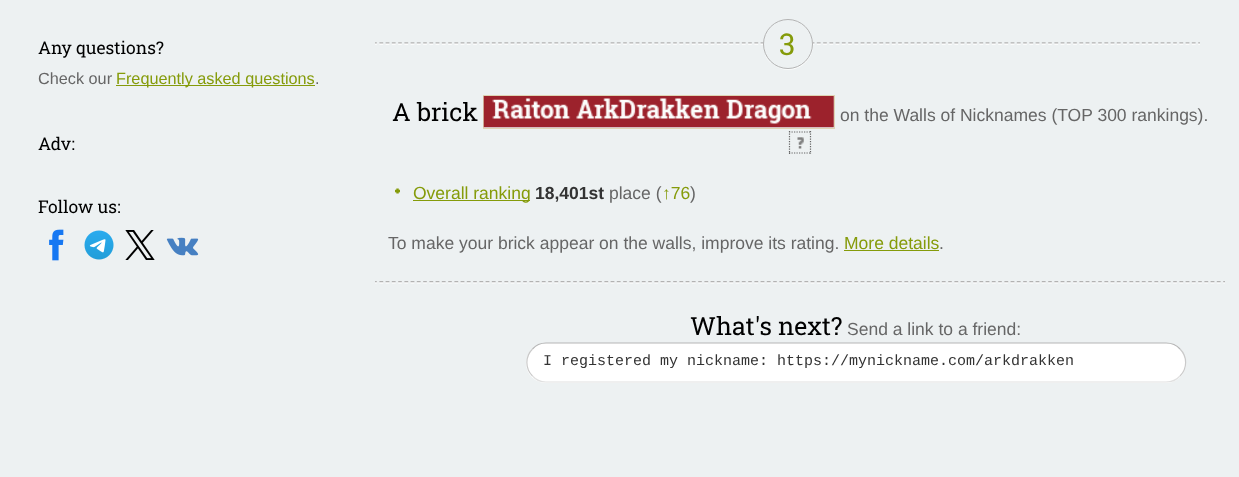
<svg xmlns="http://www.w3.org/2000/svg" xmlns:xlink="http://www.w3.org/1999/xlink" width="1239" height="477" viewBox="0 0 1239 477">
<style>
.cls-1{font:17.5px Roboto Slab;fill:#000000}
.cls-2{font:16.25px Liberation Sans;fill:#666666}
.cls-3{font:16.25px Liberation Sans;fill:#859b0a}
.cls-4{font:30px Roboto Slab;fill:#859b0a}
.cls-5{font:25px Roboto Slab;fill:#000000}
.cls-6{font:17.5px Liberation Sans;fill:#666666}
.cls-7{font:17.5px Liberation Sans;fill:#859b0a}
.cls-8{font:bold 17.5px Liberation Sans;fill:#333333}
.cls-9{font:15px Liberation Mono;fill:#333333}
</style>
<rect width="100%" height="100%" fill="#edf1f2"/>
<rect fill="#859b0a" x="116" y="85" width="199" height="1"/>
<image xlink:href="image0.png" x="49" y="229" width="15" height="32"/>
<image xlink:href="image1.png" x="84" y="230" width="30" height="30"/>
<image xlink:href="image2.png" x="125" y="230" width="30" height="30"/>
<image xlink:href="image3.png" x="166" y="237" width="33" height="19"/>
<image xlink:href="image4.png" x="375" y="42" width="825" height="3"/>
<path fill="#fbfcfc" d="M765 54C766 58 769 63 774 65C794 80 821 58 811 35C822 65 777 83 765 54Z"/>
<circle fill="#edf1f2" stroke="#b4b4b4" cx="788" cy="44" r="24.5"/>
<rect fill="none" stroke="#ded4b3" x="483.5" y="95.5" width="351" height="33"/>
<image xlink:href="image5.png" x="483" y="96" width="351" height="32"/>
<image xlink:href="image6.png" x="797" y="137" width="7" height="12"/>
<path fill="none" stroke="#666666" stroke-width="1.2" stroke-dasharray="1.25 1.25" d="M789 132H811M810.5 131V154M789 153H811M789.5 131V154"/>
<image xlink:href="image7.png" x="395" y="188" width="5" height="6"/>
<rect fill="#859b0a" x="413" y="200" width="117" height="1"/>
<rect fill="#859b0a" x="844" y="250" width="95" height="1"/>
<image xlink:href="image8.png" x="375" y="281" width="850" height="3"/>
<rect fill="#ffffff" x="526" y="343" width="660" height="40" rx="20"/>
<path fill="none" stroke="#b5b5b5" stroke-width="1.2" d="M532.5 349C536 345 541 343 546 343H1166C1171.5 343 1176.5 345 1180 349"/>
<path fill="none" stroke="#cacaca" stroke-width="1.2" d="M1180 349C1187.5 356.5 1187.5 368.5 1180 376"/>
<path fill="none" stroke="#e0e0e0" stroke-width="1.2" d="M1180 376C1176.5 380 1171.5 382 1166 382H546C541 382 536 380 532.5 376"/>
<path fill="none" stroke="#cacaca" stroke-width="1.2" d="M532.5 376C525 368.5 525 356.5 532.5 349"/>
<text class="cls-1" x="38" y="54">Any questions?</text>
<text class="cls-2" x="38" y="84">Check our</text>
<text class="cls-3" x="116" y="84">Frequently asked questions</text>
<text class="cls-2" x="315" y="84">.</text>
<text class="cls-1" x="38" y="150">Adv:</text>
<text class="cls-1" x="38" y="213">Follow us:</text>
<text class="cls-4" x="779" y="55">3</text>
<text class="cls-5" x="392" y="121">A brick</text>
<text class="cls-6" x="840" y="121">on the Walls of Nicknames (TOP 300 rankings).</text>
<text class="cls-7" x="413" y="199">Overall ranking</text>
<text class="cls-8" x="535" y="199">18,401st</text>
<text class="cls-6" x="609" y="199">place (</text>
<text class="cls-7" x="662" y="199">↑76</text>
<text class="cls-6" x="690" y="199">)</text>
<text class="cls-6" x="388" y="249">To make your brick appear on the walls, improve its rating.</text>
<text class="cls-7" x="844" y="249">More details</text>
<text class="cls-6" x="939" y="249">.</text>
<text class="cls-5" x="690" y="335">What's next?</text>
<text class="cls-6" x="847" y="335">Send a link to a friend:</text>
<text class="cls-9" x="543" y="365">I registered my nickname: https://mynickname.com/arkdrakken</text>
</svg>
